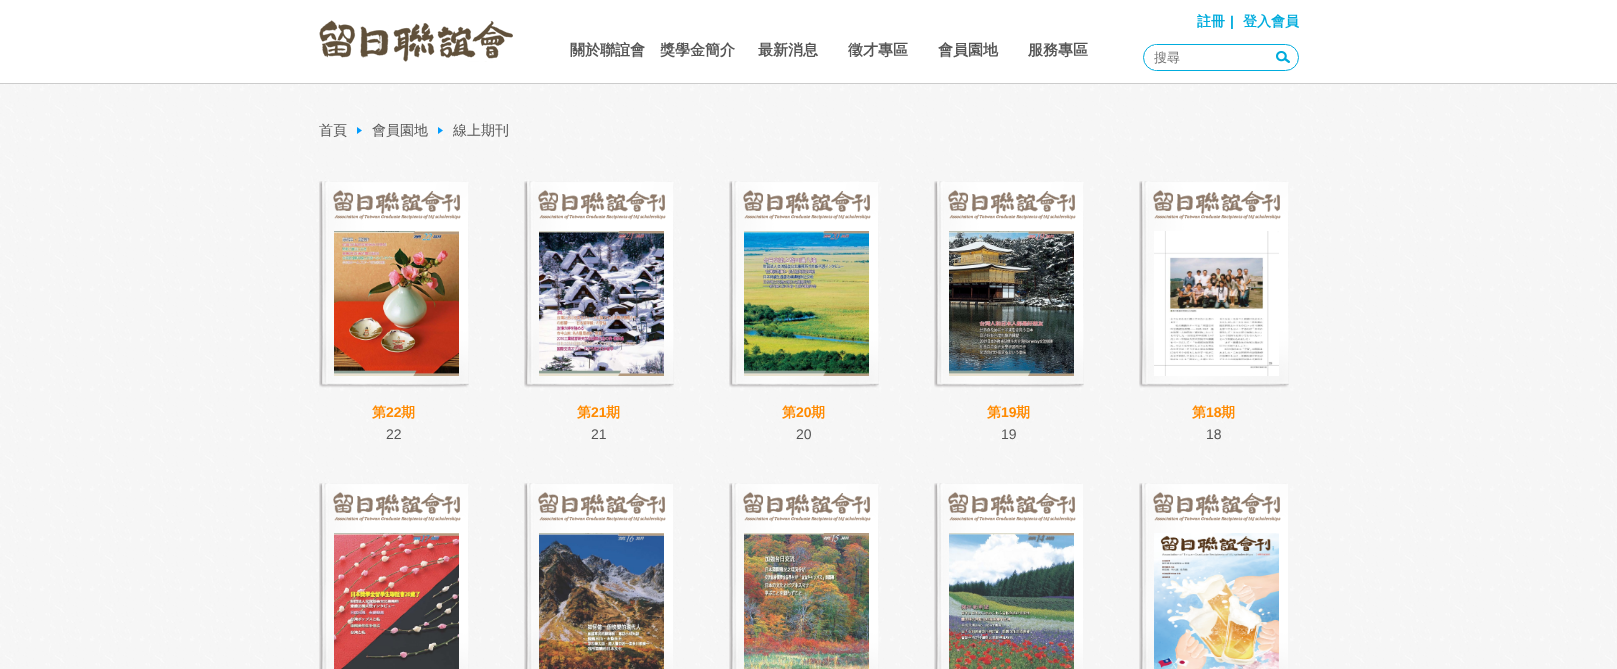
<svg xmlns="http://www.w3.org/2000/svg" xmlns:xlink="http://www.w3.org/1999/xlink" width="1617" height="669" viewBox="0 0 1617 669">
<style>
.cls-1{font:bold 15px WenQuanYi Zen Hei;fill:#555555}
.cls-2{font:bold 14px WenQuanYi Zen Hei;fill:#00acdd}
.cls-3{font:bold 14px Liberation Sans;fill:#00acdd}
.cls-4{font:500 13px WenQuanYi Zen Hei;fill:#757575}
.cls-5{font:500 14px WenQuanYi Zen Hei;fill:#555555}
.cls-6{font:bold 14px WenQuanYi Zen Hei;fill:#ff8a00}
.cls-7{font:bold 14px Liberation Sans;fill:#ff8a00}
.cls-8{font:14px Liberation Sans;fill:#555555}
</style>
<rect width="100%" height="100%" fill="#ffffff"/>
<rect fill="#cccccc" x="0" y="83" width="1617" height="1"/>
<image xlink:href="image0.png" x="319" y="20" width="194" height="42"/>
<rect fill="none" stroke="#00acdd" x="1143.5" y="44.5" width="155" height="26" rx="13"/>
<rect fill="#ffffff" x="1154" y="45" width="3" height="25"/>
<image xlink:href="image1.png" x="1276" y="51" width="14" height="12"/>
<image xlink:href="image2.png" x="0" y="84" width="1617" height="585"/>
<image xlink:href="image3.png" x="357" y="127" width="5" height="7"/>
<image xlink:href="image4.png" x="438" y="127" width="5" height="7"/>
<image xlink:href="image5.png" x="319" y="181" width="150" height="207"/>
<image xlink:href="image6.png" x="334" y="231" width="125" height="145"/>
<image xlink:href="image7.png" x="524" y="181" width="150" height="207"/>
<image xlink:href="image8.png" x="539" y="231" width="125" height="145"/>
<image xlink:href="image9.png" x="729" y="181" width="150" height="207"/>
<image xlink:href="image10.png" x="744" y="231" width="125" height="145"/>
<image xlink:href="image11.png" x="934" y="181" width="150" height="207"/>
<image xlink:href="image12.png" x="949" y="231" width="125" height="145"/>
<image xlink:href="image13.png" x="1139" y="181" width="150" height="207"/>
<image xlink:href="image14.png" x="1154" y="231" width="125" height="145"/>
<image xlink:href="image15.png" x="319" y="483" width="150" height="186"/>
<image xlink:href="image16.png" x="334" y="533" width="125" height="136"/>
<image xlink:href="image17.png" x="524" y="483" width="149" height="186"/>
<image xlink:href="image18.png" x="539" y="533" width="125" height="136"/>
<image xlink:href="image19.png" x="729" y="483" width="150" height="186"/>
<image xlink:href="image20.png" x="744" y="533" width="125" height="136"/>
<image xlink:href="image21.png" x="934" y="483" width="149" height="186"/>
<image xlink:href="image22.png" x="949" y="533" width="125" height="136"/>
<image xlink:href="image23.png" x="1139" y="483" width="149" height="186"/>
<image xlink:href="image24.png" x="1154" y="533" width="125" height="136"/>
<text class="cls-1" x="570" y="55">關於聯誼會</text>
<text class="cls-1" x="660" y="55">獎學金簡介</text>
<text class="cls-1" x="758" y="55">最新消息</text>
<text class="cls-1" x="848" y="55">徵才專區</text>
<text class="cls-1" x="938" y="55">會員園地</text>
<text class="cls-1" x="1028" y="55">服務專區</text>
<text class="cls-2" x="1197" y="26">註冊</text>
<text class="cls-3" x="1230" y="26">|</text>
<text class="cls-2" x="1243" y="26">登入會員</text>
<text class="cls-4" x="1154" y="62">搜尋</text>
<text class="cls-5" x="319" y="135">首頁</text>
<text class="cls-5" x="372" y="135">會員園地</text>
<text class="cls-5" x="453" y="135">線上期刊</text>
<text class="cls-6" x="372" y="417">第</text>
<text class="cls-7" x="386" y="417">22</text>
<text class="cls-6" x="401" y="417">期</text>
<text class="cls-8" x="386" y="439">22</text>
<text class="cls-6" x="577" y="417">第</text>
<text class="cls-7" x="591" y="417">21</text>
<text class="cls-6" x="606" y="417">期</text>
<text class="cls-8" x="591" y="439">21</text>
<text class="cls-6" x="782" y="417">第</text>
<text class="cls-7" x="796" y="417">20</text>
<text class="cls-6" x="811" y="417">期</text>
<text class="cls-8" x="796" y="439">20</text>
<text class="cls-6" x="987" y="417">第</text>
<text class="cls-7" x="1001" y="417">19</text>
<text class="cls-6" x="1016" y="417">期</text>
<text class="cls-8" x="1001" y="439">19</text>
<text class="cls-6" x="1192" y="417">第</text>
<text class="cls-7" x="1206" y="417">18</text>
<text class="cls-6" x="1221" y="417">期</text>
<text class="cls-8" x="1206" y="439">18</text>
</svg>
